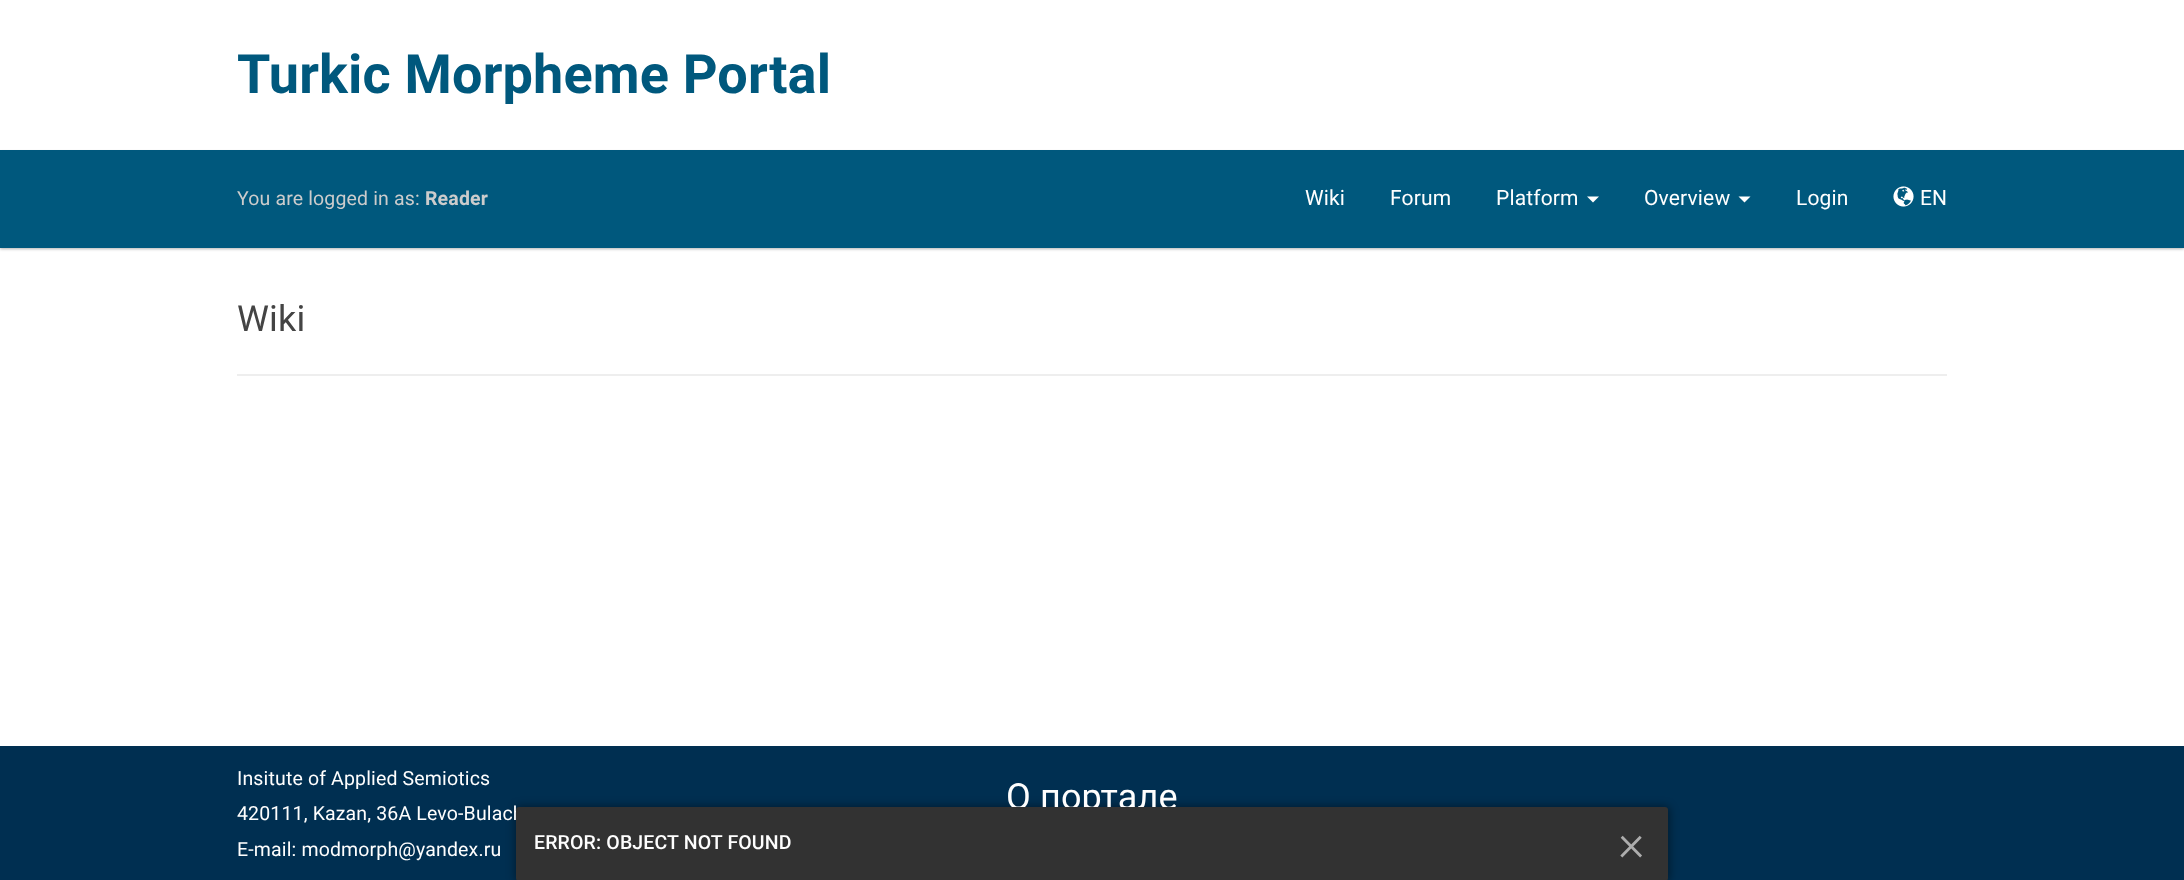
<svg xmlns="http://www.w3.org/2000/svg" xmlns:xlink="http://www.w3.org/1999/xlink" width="2184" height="880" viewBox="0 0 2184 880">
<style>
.cls-1{font:bold 54px Roboto;letter-spacing:0.15px;fill:#00587d}
.cls-2{font:19.5px Roboto;letter-spacing:0.15px;fill:#cccccc}
.cls-3{font:bold 19.5px Roboto;letter-spacing:0.15px;fill:#cccccc}
.cls-4{font:21px Roboto;letter-spacing:0.15px;fill:#fefefe}
.cls-5{font:36px Roboto;letter-spacing:0.15px;fill:#444444}
.cls-6{font:19.5px Roboto;letter-spacing:0.15px;fill:#fefefe}
.cls-7{font:36px Roboto;letter-spacing:0.15px;fill:#fefefe}
.cls-8{font:500 19.5px Roboto;letter-spacing:0.15px;fill:#fefefe}
.cls-9{font:300 51px Roboto;letter-spacing:0.15px;fill:#adadad}
</style>
<rect width="100%" height="100%" fill="#ffffff"/>
<rect fill="#000000" fill-opacity="0.3" filter="blur(1.5px)" x="0" y="152" width="2184" height="97"/>
<rect fill="#00587d" x="0" y="150" width="2184" height="98"/>
<path fill="#ffffff" d="M1587 196.5H1599L1593 202.5Z"/>
<path fill="#ffffff" d="M1738.5 196.5H1750.5L1744.5 202.5Z"/>
<image xlink:href="image0.png" x="1893" y="186" width="21" height="21"/>
<rect fill="#eeeeee" x="237" y="374" width="1710" height="2"/>
<rect fill="#002f51" x="0" y="746" width="2184" height="134"/>
<rect fill="#000000" fill-opacity="0.4" filter="blur(4.5px)" x="515" y="806" width="1155" height="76" rx="5"/>
<text class="cls-1" x="237" y="93">Turkic Morpheme Portal</text>
<text class="cls-2" x="237" y="205">You are logged in as:</text>
<text class="cls-3" x="425" y="205">Reader</text>
<text class="cls-4" x="1305" y="205">Wiki</text>
<text class="cls-4" x="1390" y="205">Forum</text>
<text class="cls-4" x="1496" y="205">Platform</text>
<text class="cls-4" x="1644" y="205">Overview</text>
<text class="cls-4" x="1796" y="205">Login</text>
<text class="cls-4" x="1920" y="205">EN</text>
<text class="cls-5" x="237" y="331">Wiki</text>
<text class="cls-6"><tspan x="237" y="785">Insitute of Applied Semiotics</tspan><tspan x="237" y="820">420111, Kazan, 36A Levo-Bulach</tspan><tspan x="237" y="856">E-mail: modmorph@yandex.ru</tspan></text>
<text class="cls-7" x="1006" y="809">О портале</text>
<rect fill="#323232" x="516" y="807" width="1152" height="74" rx="3"/>
<text class="cls-8" x="534" y="849">ERROR: OBJECT NOT FOUND</text>
<text class="cls-9" x="1618" y="860">×</text>
</svg>
